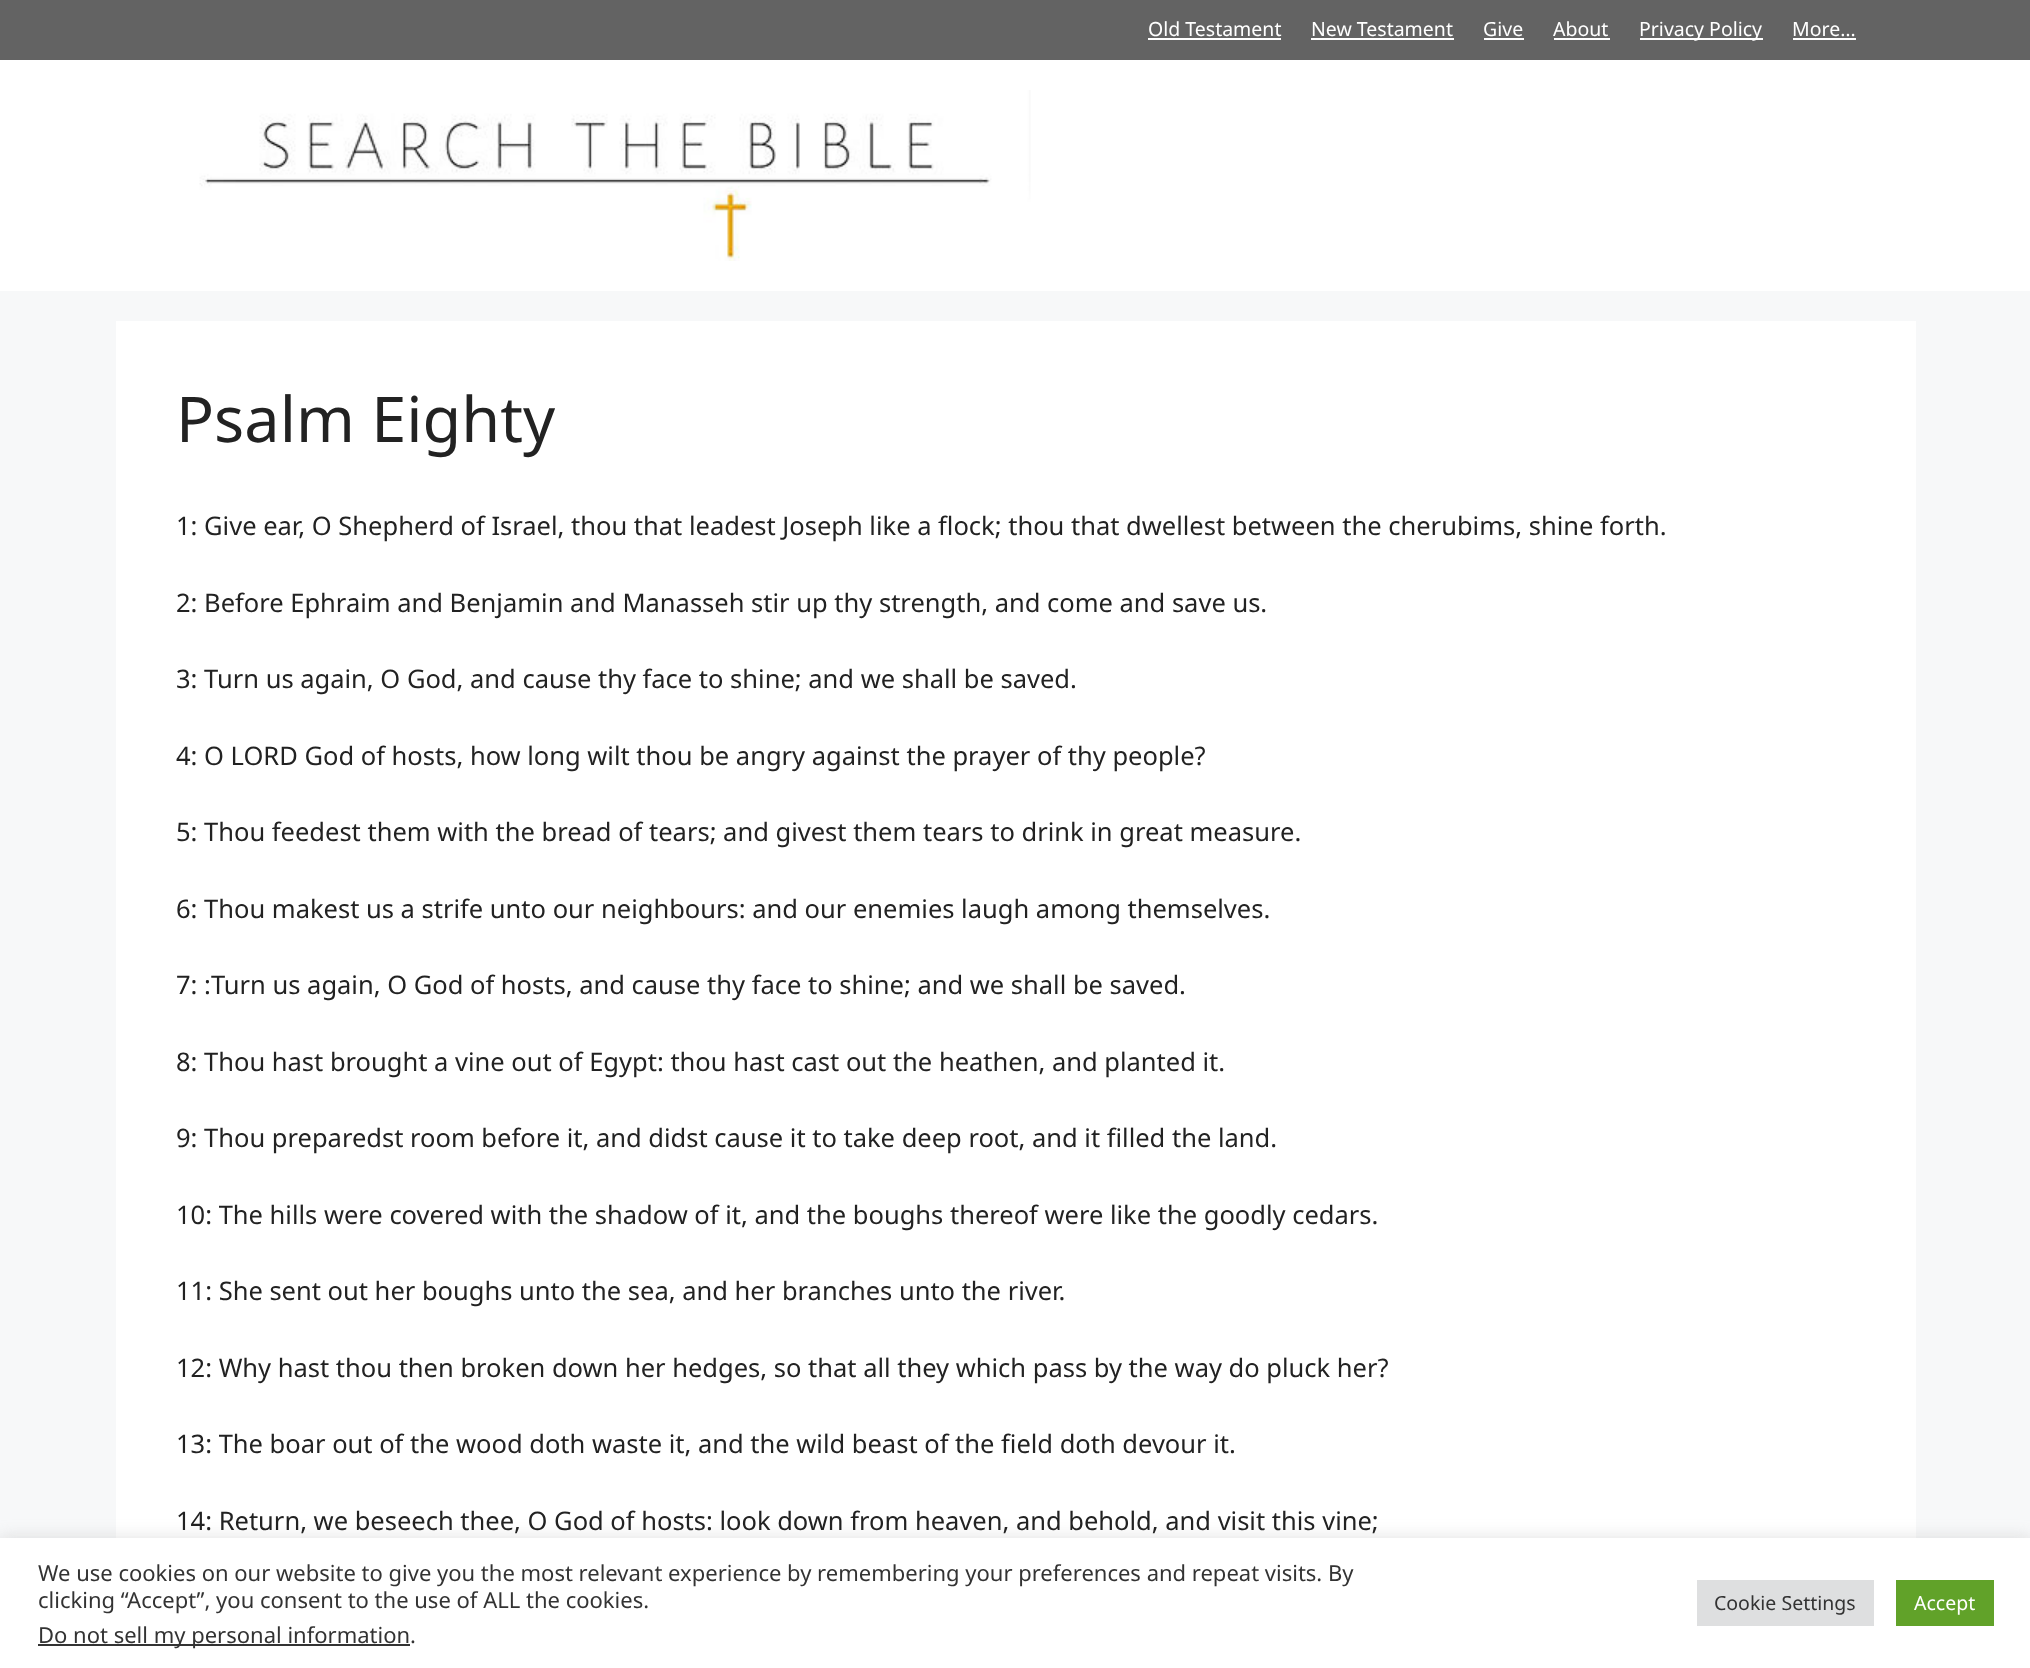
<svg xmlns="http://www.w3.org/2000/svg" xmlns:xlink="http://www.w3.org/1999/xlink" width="2030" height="1668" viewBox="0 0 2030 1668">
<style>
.cls-1{font:19.5px Noto Sans;fill:#ffffff}
.cls-2{font:63px Noto Sans;fill:#222222}
.cls-3{font:25.5px Noto Sans;fill:#222222}
.cls-4{font:22px Noto Sans;fill:#333333}
.cls-5{font:19.5px Noto Sans;fill:#333333}
</style>
<rect width="100%" height="100%" fill="#f7f8f9"/>
<rect fill="#636363" x="0" y="0" width="2030" height="60"/>
<rect fill="#ffffff" x="1148" y="38" width="133" height="2"/>
<rect fill="#ffffff" x="1311" y="38" width="143" height="2"/>
<rect fill="#ffffff" x="1484" y="38" width="40" height="2"/>
<rect fill="#ffffff" x="1554" y="38" width="56" height="2"/>
<rect fill="#ffffff" x="1640" y="38" width="123" height="2"/>
<rect fill="#ffffff" x="1793" y="38" width="63" height="2"/>
<rect fill="#ffffff" x="0" y="60" width="2030" height="231"/>
<image xlink:href="image0.png" x="199" y="90" width="832" height="171"/>
<rect fill="#ffffff" x="116" y="321" width="1800" height="1217"/>
<rect fill="#acabab" fill-opacity="0.3" filter="blur(7.5px)" x="0" y="1536" width="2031" height="131"/>
<rect fill="#ffffff" x="0" y="1538" width="2030" height="130"/>
<rect fill="#333333" x="38" y="1644" width="372" height="2"/>
<rect fill="#dedfe0" x="1697" y="1580" width="177" height="46"/>
<rect fill="#61a229" x="1896" y="1580" width="98" height="46"/>
<text class="cls-1" x="1148" y="36">Old Testament</text>
<text class="cls-1" x="1311" y="36">New Testament</text>
<text class="cls-1" x="1483" y="36">Give</text>
<text class="cls-1" x="1553" y="36">About</text>
<text class="cls-1" x="1639" y="36">Privacy Policy</text>
<text class="cls-1" x="1792" y="36">More…</text>
<text class="cls-2" x="176" y="442">Psalm Eighty</text>
<text class="cls-3" x="176" y="535">1: Give ear, O Shepherd of Israel, thou that leadest Joseph like a flock; thou that dwellest between the cherubims, shine forth.</text>
<text class="cls-3" x="176" y="612">2: Before Ephraim and Benjamin and Manasseh stir up thy strength, and come and save us.</text>
<text class="cls-3" x="176" y="688">3: Turn us again, O God, and cause thy face to shine; and we shall be saved.</text>
<text class="cls-3" x="176" y="765">4: O LORD God of hosts, how long wilt thou be angry against the prayer of thy people?</text>
<text class="cls-3" x="176" y="841">5: Thou feedest them with the bread of tears; and givest them tears to drink in great measure.</text>
<text class="cls-3" x="176" y="918">6: Thou makest us a strife unto our neighbours: and our enemies laugh among themselves.</text>
<text class="cls-3" x="176" y="994">7: :Turn us again, O God of hosts, and cause thy face to shine; and we shall be saved.</text>
<text class="cls-3" x="176" y="1071">8: Thou hast brought a vine out of Egypt: thou hast cast out the heathen, and planted it.</text>
<text class="cls-3" x="176" y="1147">9: Thou preparedst room before it, and didst cause it to take deep root, and it filled the land.</text>
<text class="cls-3" x="176" y="1224">10: The hills were covered with the shadow of it, and the boughs thereof were like the goodly cedars.</text>
<text class="cls-3" x="176" y="1300">11: She sent out her boughs unto the sea, and her branches unto the river.</text>
<text class="cls-3" x="176" y="1377">12: Why hast thou then broken down her hedges, so that all they which pass by the way do pluck her?</text>
<text class="cls-3" x="176" y="1453">13: The boar out of the wood doth waste it, and the wild beast of the field doth devour it.</text>
<text class="cls-3" x="176" y="1530">14: Return, we beseech thee, O God of hosts: look down from heaven, and behold, and visit this vine;</text>
<text class="cls-4"><tspan x="38" y="1581">We use cookies on our website to give you the most relevant experience by remembering your preferences and repeat visits. By</tspan><tspan x="38" y="1608">clicking “Accept”, you consent to the use of ALL the cookies.</tspan><tspan x="38" y="1643">Do not sell my personal information.</tspan></text>
<text class="cls-5" x="1714" y="1610">Cookie Settings</text>
<text class="cls-1" x="1914" y="1610">Accept</text>
</svg>
